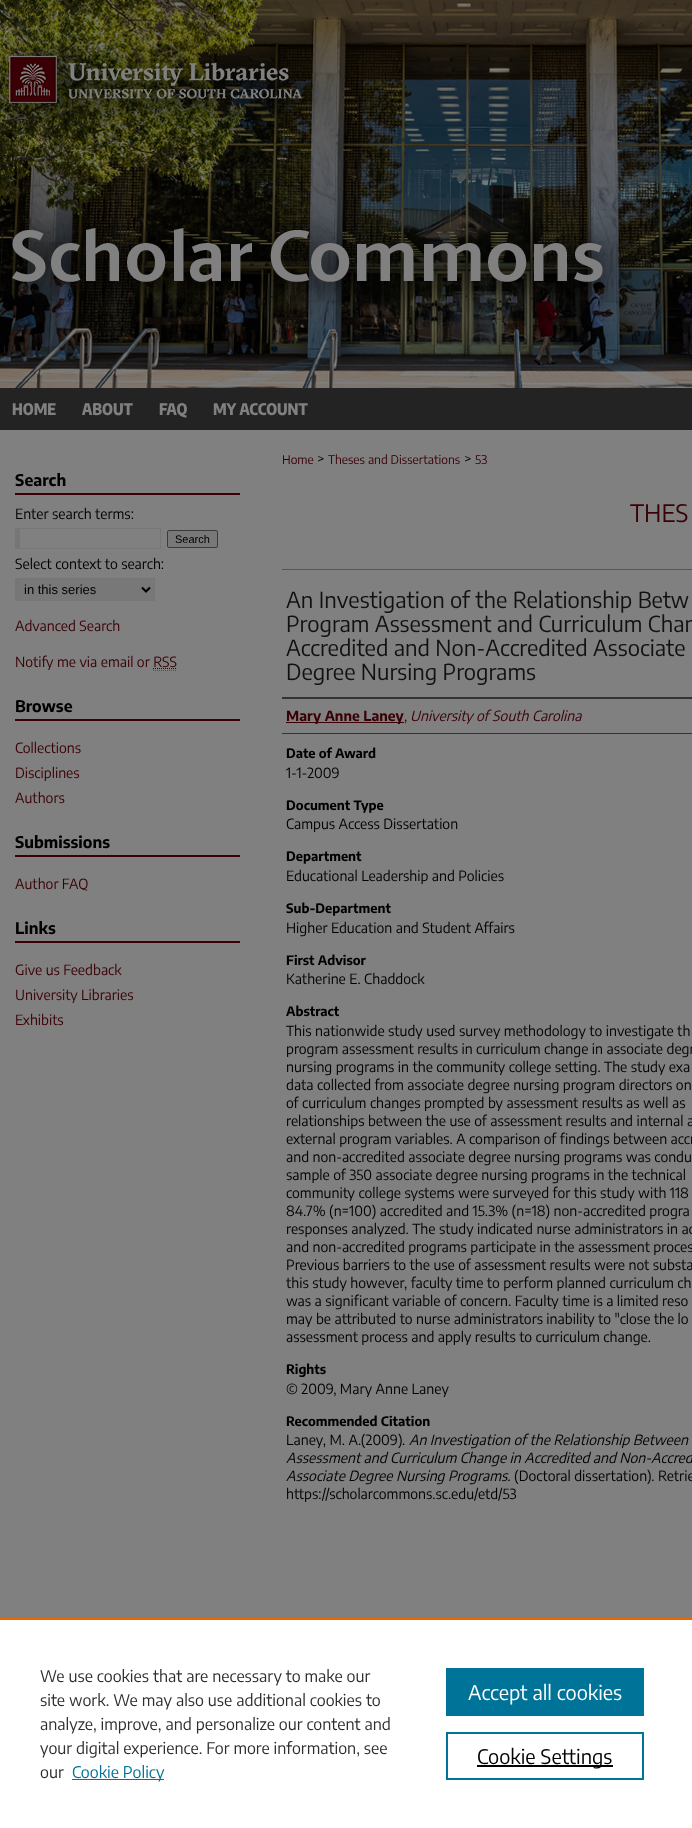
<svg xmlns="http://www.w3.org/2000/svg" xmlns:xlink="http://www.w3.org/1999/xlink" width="692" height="1828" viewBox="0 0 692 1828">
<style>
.cls-1{font:800 16px Encode Sans Condensed;fill:#808080}
.cls-2{font:bold 16px Encode Sans Condensed;fill:#000000}
.cls-3{font:14px Encode Sans Condensed;fill:#000000}
.cls-4{font:11px Liberation Sans;fill:#000000}
.cls-5{font:13px Liberation Sans;fill:#000000}
.cls-6{font:14px Encode Sans Condensed;fill:#3a0005}
.cls-7{font:12px Encode Sans Condensed;fill:#3a0005}
.cls-8{font:24px Encode Sans Condensed;fill:#3a0005}
.cls-9{font:22px Encode Sans Condensed;fill:#111111}
.cls-10{font:bold 14px Encode Sans Condensed;fill:#3a0005}
.cls-11{font:italic 14px Encode Sans Condensed;fill:#3a0005}
.cls-12{font:bold 13px Encode Sans Condensed;fill:#000000}
.cls-13{font:italic 14px Encode Sans Condensed;fill:#000000}
.cls-14{font:16px Encode Sans Condensed;fill:#2e2e2e}
.cls-15{font:16px Encode Sans Condensed;fill:#007398}
.cls-16{font:20px Encode Sans Condensed;fill:#ffffff}
.cls-17{font:20px Encode Sans Condensed;fill:#000000}
</style>
<rect width="100%" height="100%" fill="#808080"/>
<image xlink:href="image0.png" x="0" y="388" width="692" height="42"/>
<image xlink:href="image1.png" x="0" y="0" width="692" height="388"/>
<rect fill="#3a0005" x="15" y="493" width="225" height="2"/>
<rect fill="#767676" x="15" y="528" width="146" height="1"/>
<rect fill="#767676" x="160" y="528" width="1" height="21"/>
<rect fill="#767676" x="15" y="548" width="146" height="1"/>
<rect fill="#767676" x="15" y="528" width="5" height="21"/>
<rect fill="#787878" stroke="#3b3b3b" x="167.5" y="530.5" width="50" height="17" rx="1.5"/>
<rect fill="#787878" x="20" y="579" width="134" height="21"/>
<rect fill="#767676" x="15" y="578" width="140" height="1"/>
<rect fill="#767676" x="154" y="578" width="1" height="23"/>
<rect fill="#767676" x="15" y="600" width="140" height="1"/>
<rect fill="#767676" x="15" y="578" width="5" height="23"/>
<path fill="none" stroke="#000000" stroke-width="2" d="M142 587.5L146 591.5L150 587.5"/>
<path fill="none" stroke="#3a0005" stroke-dasharray="1 1" d="M153 668.5H177"/>
<rect fill="#3a0005" x="15" y="719" width="225" height="2"/>
<rect fill="#3a0005" x="15" y="855" width="225" height="2"/>
<rect fill="#3a0005" x="15" y="941" width="225" height="2"/>
<rect fill="#555555" x="282" y="569" width="410" height="1"/>
<rect fill="#333333" x="282" y="697" width="410" height="2"/>
<rect fill="#333333" x="282" y="733" width="410" height="1"/>
<rect fill="#3a0005" x="286" y="722" width="118" height="1"/>
<rect fill="#ffffff" x="0" y="1620" width="692" height="208"/>
<rect fill="#eb6500" x="0" y="1618" width="692" height="2"/>
<rect fill="#007398" x="72" y="1779" width="92" height="1"/>
<rect fill="#007398" x="446" y="1668" width="198" height="48"/>
<rect fill="none" stroke="#007398" stroke-width="2" x="447" y="1733" width="196" height="46"/>
<rect fill="#000000" x="477" y="1765" width="136" height="2"/>
<text class="cls-1" x="12" y="415">HOME</text>
<text class="cls-1" x="82" y="415">ABOUT</text>
<text class="cls-1" x="159" y="415">FAQ</text>
<text class="cls-1" x="213" y="415">MY ACCOUNT</text>
<text class="cls-2" x="15" y="486">Search</text>
<text class="cls-3" x="15" y="519">Enter search terms:</text>
<text class="cls-4" x="175" y="543">Search</text>
<text class="cls-3" x="15" y="569">Select context to search:</text>
<text class="cls-5" x="24" y="594">in this series</text>
<text class="cls-6" x="15" y="631">Advanced Search</text>
<text class="cls-6" x="15" y="667">Notify me via email or RSS</text>
<path fill="none" stroke="#4d4d4d" stroke-dasharray="1 1" d="M153 670.5H177"/>
<text class="cls-2" x="15" y="712">Browse</text>
<text class="cls-6"><tspan x="15" y="753">Collections</tspan><tspan x="15" y="778">Disciplines</tspan><tspan x="15" y="803">Authors</tspan></text>
<text class="cls-2" x="15" y="848">Submissions</text>
<text class="cls-6" x="15" y="889">Author FAQ</text>
<text class="cls-2" x="15" y="934">Links</text>
<text class="cls-6"><tspan x="15" y="975">Give us Feedback</tspan><tspan x="15" y="1000">University Libraries</tspan><tspan x="15" y="1025">Exhibits</tspan></text>
<text class="cls-7" x="282" y="464">Home</text>
<text class="cls-3" x="317" y="464">&gt;</text>
<text class="cls-7" x="328" y="464">Theses and Dissertations</text>
<text class="cls-3" x="464" y="464">&gt;</text>
<text class="cls-7" x="475" y="464">53</text>
<text class="cls-8" x="630" y="522">THES</text>
<text class="cls-9"><tspan x="286" y="608">An Investigation of the Relationship Betw</tspan><tspan x="286" y="632">Program Assessment and Curriculum Chan</tspan><tspan x="286" y="656">Accredited and Non-Accredited Associate</tspan><tspan x="286" y="680">Degree Nursing Programs</tspan></text>
<text class="cls-10" x="286" y="721">Mary Anne Laney</text>
<text class="cls-6" x="404" y="721">,</text>
<text class="cls-11" x="410" y="721">University of South Carolina</text>
<text class="cls-12" x="286" y="758">Date of Award</text>
<text class="cls-3" x="286" y="778">1-1-2009</text>
<text class="cls-12" x="286" y="810">Document Type</text>
<text class="cls-3" x="286" y="829">Campus Access Dissertation</text>
<text class="cls-12" x="286" y="861">Department</text>
<text class="cls-3" x="286" y="881">Educational Leadership and Policies</text>
<text class="cls-12" x="286" y="913">Sub-Department</text>
<text class="cls-3" x="286" y="933">Higher Education and Student Affairs</text>
<text class="cls-12" x="286" y="965">First Advisor</text>
<text class="cls-3" x="286" y="984">Katherine E. Chaddock</text>
<text class="cls-12" x="286" y="1016">Abstract</text>
<text class="cls-3"><tspan x="286" y="1036">This nationwide study used survey methodology to investigate th</tspan><tspan x="286" y="1054">program assessment results in curriculum change in associate degr</tspan><tspan x="286" y="1072">nursing programs in the community college setting. The study exa</tspan><tspan x="286" y="1090">data collected from associate degree nursing program directors on</tspan><tspan x="286" y="1108">of curriculum changes prompted by assessment results as well as</tspan><tspan x="286" y="1126">relationships between the use of assessment results and internal a</tspan><tspan x="286" y="1144">external program variables. A comparison of findings between accr</tspan><tspan x="286" y="1162">and non-accredited associate degree nursing programs was condu</tspan><tspan x="286" y="1180">sample of 350 associate degree nursing programs in the technical</tspan><tspan x="286" y="1198">community college systems were surveyed for this study with 118</tspan><tspan x="286" y="1216">84.7% (n=100) accredited and 15.3% (n=18) non-accredited progra</tspan><tspan x="286" y="1234">responses analyzed. The study indicated nurse administrators in ac</tspan><tspan x="286" y="1252">and non-accredited programs participate in the assessment proces</tspan><tspan x="286" y="1270">Previous barriers to the use of assessment results were not substa</tspan><tspan x="286" y="1288">this study however, faculty time to perform planned curriculum ch</tspan><tspan x="286" y="1306">was a significant variable of concern. Faculty time is a limited reso</tspan><tspan x="286" y="1324">may be attributed to nurse administrators inability to "close the lo</tspan><tspan x="286" y="1342">assessment process and apply results to curriculum change.</tspan></text>
<text class="cls-12" x="286" y="1374">Rights</text>
<text class="cls-3" x="286" y="1394">© 2009, Mary Anne Laney</text>
<text class="cls-12" x="286" y="1426">Recommended Citation</text>
<text class="cls-3" x="286" y="1445">Laney, M. A.(2009).</text>
<text class="cls-13" x="409" y="1445">An Investigation of the Relationship Between</text>
<text class="cls-13"><tspan x="286" y="1463">Assessment and Curriculum Change in Accredited and Non-Accred</tspan><tspan x="286" y="1481">Associate Degree Nursing Programs.</tspan></text>
<text class="cls-3" x="514" y="1481">(Doctoral dissertation). Retrie</text>
<text class="cls-3" x="286" y="1499">https://scholarcommons.sc.edu/etd/53</text>
<text class="cls-14"><tspan x="40" y="1682">We use cookies that are necessary to make our</tspan><tspan x="40" y="1706">site work. We may also use additional cookies to</tspan><tspan x="40" y="1730">analyze, improve, and personalize our content and</tspan><tspan x="40" y="1754">your digital experience. For more information, see</tspan><tspan x="40" y="1778">our</tspan></text>
<text class="cls-15" x="72" y="1778">Cookie Policy</text>
<text class="cls-16" x="468" y="1700">Accept all cookies</text>
<text class="cls-17" x="477" y="1764">Cookie Settings</text>
</svg>
